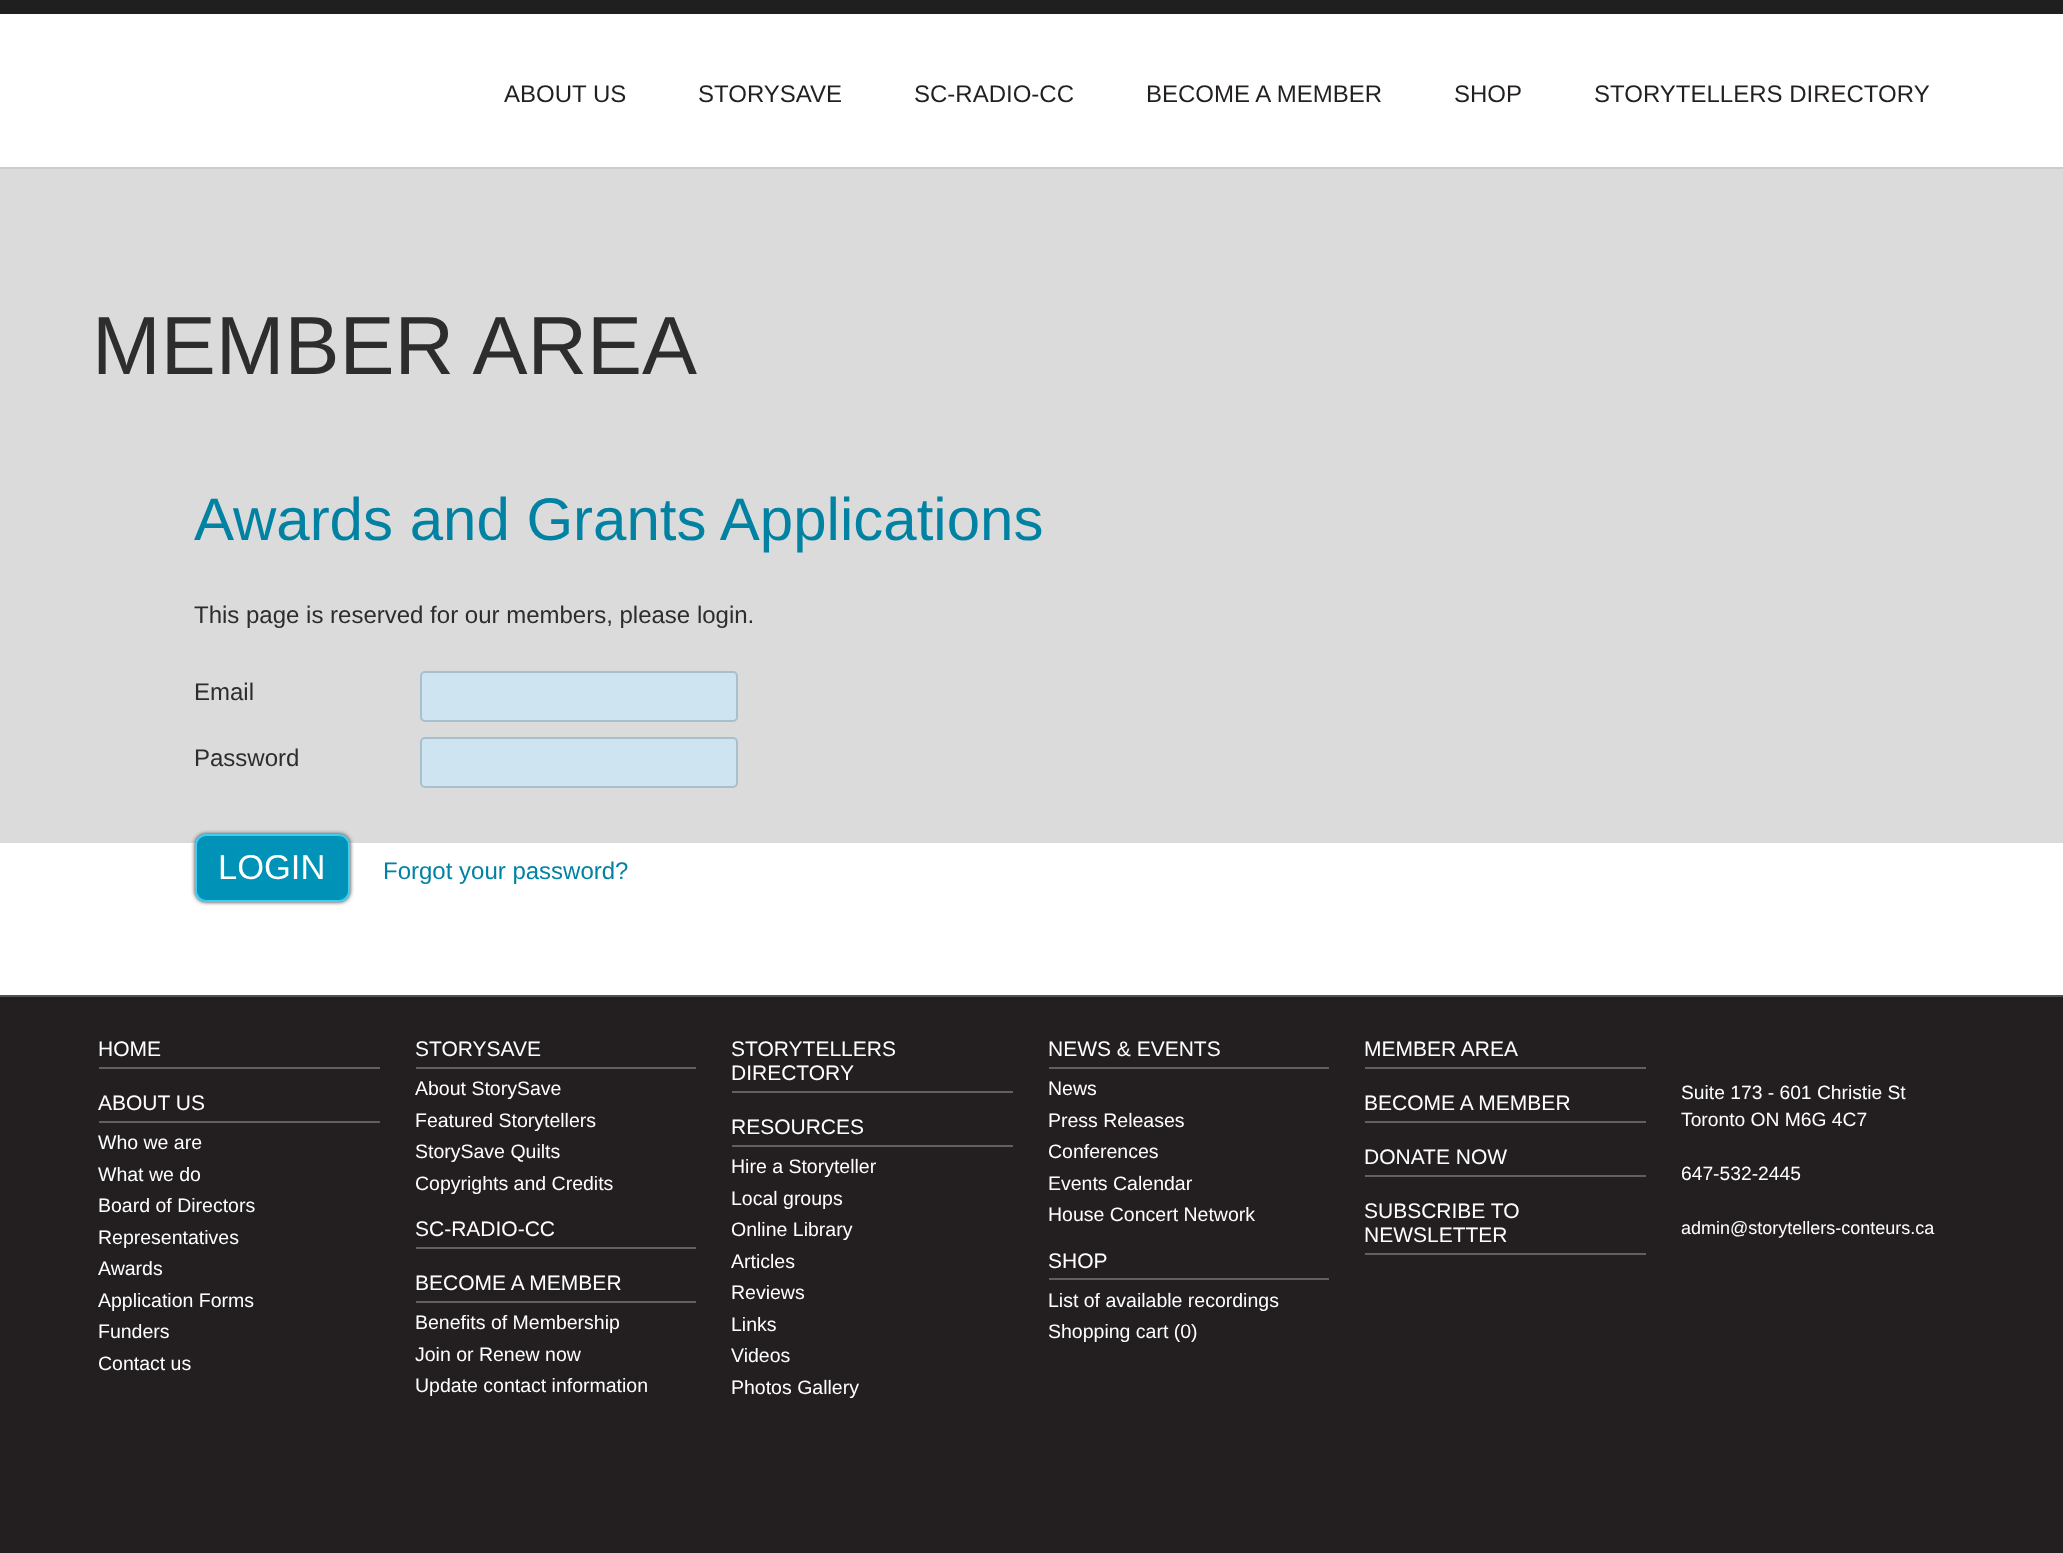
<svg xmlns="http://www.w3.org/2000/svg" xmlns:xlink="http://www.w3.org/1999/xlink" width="2063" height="1553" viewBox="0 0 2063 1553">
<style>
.cls-1{font:24px Liberation Sans;fill:#231f20}
.cls-2{font:82.5px Liberation Sans;fill:#2d2d2d}
.cls-3{font:60px Liberation Sans;fill:#0182a2}
.cls-4{font:24px Liberation Sans;fill:#2d2d2d}
.cls-5{font:34.5px Liberation Sans;fill:#ffffff}
.cls-6{font:24px Liberation Sans;fill:#0182a2}
.cls-7{font:21px Liberation Sans;fill:#ffffff}
.cls-8{font:19.5px Liberation Sans;fill:#ffffff}
.cls-9{font:19.25px Liberation Sans;fill:#ffffff}
.cls-10{font:18px Liberation Sans;fill:#ffffff}
</style>
<rect width="100%" height="100%" fill="#231f20"/>
<rect fill="#1f1f1f" x="0" y="0" width="2063" height="14"/>
<rect fill="#ffffff" x="0" y="14" width="2063" height="153"/>
<rect fill="#cccccc" x="0" y="167" width="2063" height="2"/>
<rect fill="#dbdbdb" x="0" y="169" width="2063" height="674"/>
<rect fill="#ffffff" x="0" y="843" width="2063" height="152"/>
<rect fill="#cee4f1" stroke="#a8bfcd" stroke-width="2" x="421" y="672" width="316" height="49" rx="4"/>
<rect fill="#cee4f1" stroke="#a8bfcd" stroke-width="2" x="421" y="738" width="316" height="49" rx="4"/>
<rect fill="#333333" filter="blur(2px)" x="195" y="834" width="155" height="68" rx="11"/>
<rect fill="#0092b7" stroke="#3fcef2" stroke-width="2" x="196" y="835" width="153" height="66" rx="10"/>
<rect fill="#515151" x="0" y="995" width="2063" height="2"/>
<rect fill="#615f60" x="99" y="1067" width="281" height="2"/>
<rect fill="#615f60" x="99" y="1121" width="281" height="2"/>
<rect fill="#615f60" x="416" y="1067" width="280" height="2"/>
<rect fill="#615f60" x="416" y="1247" width="280" height="2"/>
<rect fill="#615f60" x="416" y="1301" width="280" height="2"/>
<rect fill="#615f60" x="732" y="1091" width="281" height="2"/>
<rect fill="#615f60" x="732" y="1145" width="281" height="2"/>
<rect fill="#615f60" x="1049" y="1067" width="280" height="2"/>
<rect fill="#615f60" x="1049" y="1278" width="280" height="2"/>
<rect fill="#615f60" x="1365" y="1067" width="281" height="2"/>
<rect fill="#615f60" x="1365" y="1121" width="281" height="2"/>
<rect fill="#615f60" x="1365" y="1175" width="281" height="2"/>
<rect fill="#615f60" x="1365" y="1253" width="281" height="2"/>
<text class="cls-1" x="504" y="102">ABOUT US</text>
<text class="cls-1" x="698" y="102">STORYSAVE</text>
<text class="cls-1" x="914" y="102">SC-RADIO-CC</text>
<text class="cls-1" x="1146" y="102">BECOME A MEMBER</text>
<text class="cls-1" x="1454" y="102">SHOP</text>
<text class="cls-1" x="1594" y="102">STORYTELLERS DIRECTORY</text>
<text class="cls-2" x="92" y="374">MEMBER AREA</text>
<text class="cls-3" x="194" y="540">Awards and Grants Applications</text>
<text class="cls-4" x="194" y="623">This page is reserved for our members, please login.</text>
<text class="cls-4" x="194" y="700">Email</text>
<text class="cls-4" x="194" y="766">Password</text>
<text class="cls-5" x="218" y="879">LOGIN</text>
<text class="cls-6" x="383" y="879">Forgot your password?</text>
<text class="cls-7" x="98" y="1056">HOME</text>
<text class="cls-7" x="98" y="1110">ABOUT US</text>
<text class="cls-8"><tspan x="98" y="1149">Who we are</tspan><tspan x="98" y="1181">What we do</tspan><tspan x="98" y="1212">Board of Directors</tspan><tspan x="98" y="1244">Representatives</tspan><tspan x="98" y="1275">Awards</tspan><tspan x="98" y="1307">Application Forms</tspan><tspan x="98" y="1338">Funders</tspan><tspan x="98" y="1370">Contact us</tspan></text>
<text class="cls-7" x="415" y="1056">STORYSAVE</text>
<text class="cls-8"><tspan x="415" y="1095">About StorySave</tspan><tspan x="415" y="1127">Featured Storytellers</tspan><tspan x="415" y="1158">StorySave Quilts</tspan><tspan x="415" y="1190">Copyrights and Credits</tspan></text>
<text class="cls-7" x="415" y="1236">SC-RADIO-CC</text>
<text class="cls-7" x="415" y="1290">BECOME A MEMBER</text>
<text class="cls-8"><tspan x="415" y="1329">Benefits of Membership</tspan><tspan x="415" y="1361">Join or Renew now</tspan><tspan x="415" y="1392">Update contact information</tspan></text>
<text class="cls-7"><tspan x="731" y="1056">STORYTELLERS</tspan><tspan x="731" y="1080">DIRECTORY</tspan></text>
<text class="cls-7" x="731" y="1134">RESOURCES</text>
<text class="cls-8"><tspan x="731" y="1173">Hire a Storyteller</tspan><tspan x="731" y="1205">Local groups</tspan><tspan x="731" y="1236">Online Library</tspan><tspan x="731" y="1268">Articles</tspan><tspan x="731" y="1299">Reviews</tspan><tspan x="731" y="1331">Links</tspan><tspan x="731" y="1362">Videos</tspan><tspan x="731" y="1394">Photos Gallery</tspan></text>
<text class="cls-7" x="1048" y="1056">NEWS &amp; EVENTS</text>
<text class="cls-8"><tspan x="1048" y="1095">News</tspan><tspan x="1048" y="1127">Press Releases</tspan><tspan x="1048" y="1158">Conferences</tspan><tspan x="1048" y="1190">Events Calendar</tspan><tspan x="1048" y="1221">House Concert Network</tspan></text>
<text class="cls-7" x="1048" y="1268">SHOP</text>
<text class="cls-8"><tspan x="1048" y="1307">List of available recordings</tspan><tspan x="1048" y="1338">Shopping cart (0)</tspan></text>
<text class="cls-7" x="1364" y="1056">MEMBER AREA</text>
<text class="cls-7" x="1364" y="1110">BECOME A MEMBER</text>
<text class="cls-7" x="1364" y="1164">DONATE NOW</text>
<text class="cls-7"><tspan x="1364" y="1218">SUBSCRIBE TO</tspan><tspan x="1364" y="1242">NEWSLETTER</tspan></text>
<text class="cls-9"><tspan x="1681" y="1099">Suite 173 - 601 Christie St</tspan><tspan x="1681" y="1126">Toronto ON M6G 4C7</tspan></text>
<text class="cls-9" x="1681" y="1180">647-532-2445</text>
<text class="cls-10" x="1681" y="1234">admin@storytellers-conteurs.ca</text>
</svg>
